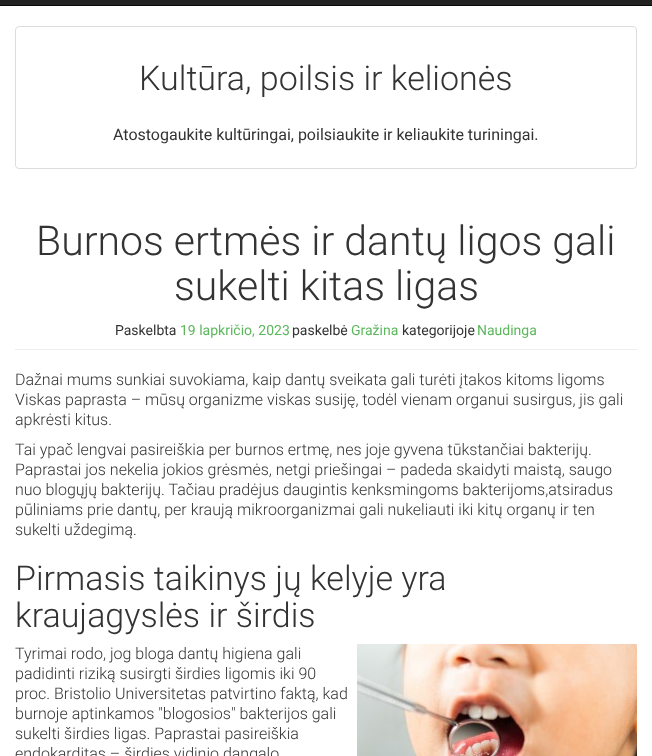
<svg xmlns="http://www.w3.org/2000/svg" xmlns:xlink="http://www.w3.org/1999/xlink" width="652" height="756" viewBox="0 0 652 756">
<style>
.cls-1{font:300 34px Roboto;fill:#333333}
.cls-2{font:16px Roboto;fill:#333333}
.cls-3{font:300 41px Roboto;fill:#333333}
.cls-4{font:14px Roboto;fill:#333333}
.cls-5{font:14px Roboto;fill:#5cb85c}
.cls-6{font:300 16px 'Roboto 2';fill:#333333}
.cls-7{font:300 34px 'Roboto 2';fill:#333333}
</style>
<rect width="100%" height="100%" fill="#ffffff"/>
<rect fill="#222222" x="0" y="0" width="652" height="5"/>
<rect fill="#080808" x="0" y="5" width="652" height="1"/>
<rect fill="none" stroke="#dddddd" x="15.5" y="26.5" width="621" height="142" rx="3.5"/>
<rect fill="#eeeeee" x="15" y="349" width="622" height="1"/>
<image xlink:href="image0.png" x="357" y="644" width="280" height="112"/>
<text class="cls-1" x="139" y="90">Kultūra, poilsis ir kelionės</text>
<text class="cls-2" x="113" y="140">Atostogaukite kultūringai, poilsiaukite ir keliaukite turiningai.</text>
<text class="cls-3" x="36" y="255">Burnos ertmės ir dantų ligos gali</text>
<text class="cls-3" x="174" y="300">sukelti kitas ligas</text>
<text class="cls-4" x="115" y="335">Paskelbta</text>
<text class="cls-5" x="180" y="335">19 lapkričio, 2023</text>
<text class="cls-4" x="292" y="335">paskelbė</text>
<text class="cls-5" x="351" y="335">Gražina</text>
<text class="cls-4" x="402" y="335">kategorijoje</text>
<text class="cls-5" x="477" y="335">Naudinga</text>
<text class="cls-6"><tspan x="15" y="385">Dažnai mums sunkiai suvokiama, kaip dantų sveikata gali turėti įtakos kitoms ligoms</tspan><tspan x="15" y="405">Viskas paprasta – mūsų organizme viskas susiję, todėl vienam organui susirgus, jis gali</tspan><tspan x="15" y="425">apkrėsti kitus.</tspan><tspan x="15" y="455">Tai ypač lengvai pasireiškia per burnos ertmę, nes joje gyvena tūkstančiai bakterijų.</tspan><tspan x="15" y="475">Paprastai jos nekelia jokios grėsmės, netgi priešingai – padeda skaidyti maistą, saugo</tspan><tspan x="15" y="495">nuo blogųjų bakterijų. Tačiau pradėjus daugintis kenksmingoms bakterijoms,atsiradus</tspan><tspan x="15" y="515">pūliniams prie dantų, per kraują mikroorganizmai gali nukeliauti iki kitų organų ir ten</tspan><tspan x="15" y="535">sukelti uždegimą.</tspan></text>
<text class="cls-7"><tspan x="15" y="590">Pirmasis taikinys jų kelyje yra</tspan><tspan x="15" y="627">kraujagyslės ir širdis</tspan></text>
<text class="cls-6"><tspan x="15" y="659">Tyrimai rodo, jog bloga dantų higiena gali</tspan><tspan x="15" y="679">padidinti riziką susirgti širdies ligomis iki 90</tspan><tspan x="15" y="699">proc. Bristolio Universitetas patvirtino faktą, kad</tspan><tspan x="15" y="719">burnoje aptinkamos "blogosios" bakterijos gali</tspan><tspan x="15" y="739">sukelti širdies ligas. Paprastai pasireiškia</tspan><tspan x="15" y="759">endokarditas – širdies vidinio dangalo</tspan></text>
</svg>
